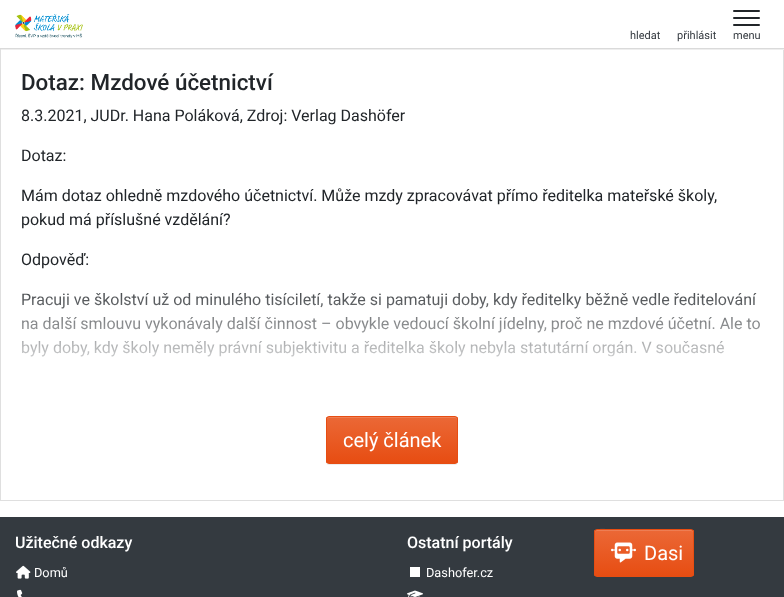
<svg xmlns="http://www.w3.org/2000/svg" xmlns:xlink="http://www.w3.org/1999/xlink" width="784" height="597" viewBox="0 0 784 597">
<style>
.cls-1{font:11px Roboto;fill:#343a40}
.cls-2{font:500 22.4px Roboto;fill:#212529}
.cls-3{font:16px Roboto;fill:#212529}
.cls-4{font:20px Roboto;fill:#ffffff}
.cls-5{font:500 16px Roboto;fill:#ffffff}
.cls-6{font:12.75px Roboto;fill:#ffffff}
</style>
<defs>
<clipPath id="clip1"><rect x="326" y="416" width="132" height="48" rx="3"/></clipPath>
<linearGradient id="g1" gradientUnits="userSpaceOnUse" x1="392" y1="417" x2="392" y2="463"><stop offset="0" stop-color="#eb6836"/><stop offset="1" stop-color="#e74d12"/></linearGradient>
<clipPath id="clip2"><rect x="594" y="529" width="100" height="48" rx="3"/></clipPath>
<linearGradient id="g2" gradientUnits="userSpaceOnUse" x1="644" y1="530" x2="644" y2="576"><stop offset="0" stop-color="#eb6836"/><stop offset="1" stop-color="#e74d12"/></linearGradient>
<linearGradient id="g3" gradientUnits="userSpaceOnUse" x1="392" y1="272" x2="392" y2="384"><stop offset="0" stop-color="#ffffff" stop-opacity="0"/><stop offset="1" stop-color="#ffffff"/></linearGradient>
</defs>
<rect width="100%" height="100%" fill="#ffffff"/>
<rect fill="none" stroke="#dfdfdf" x="0.5" y="48.5" width="783" height="452"/>
<rect fill="#eeeeee" filter="blur(0.5px)" x="1" y="1" width="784" height="49"/>
<rect fill="#ffffff" x="1" y="1" width="783" height="47"/>
<rect fill="#dadada" x="0" y="48" width="784" height="1"/>
<image xlink:href="image0.png" x="15" y="14" width="68" height="24"/>
<rect fill="#212529" x="733" y="10" width="27" height="2" rx="1"/>
<rect fill="#212529" x="733" y="17" width="27" height="2" rx="1"/>
<rect fill="#212529" x="733" y="24" width="27" height="2" rx="1"/>
<rect fill="#000000" fill-opacity="0.07" filter="blur(0.5px)" x="326" y="417" width="132" height="48" rx="3"/>
<g clip-path="url(#clip1)">
<rect fill="url(#g1)" x="326" y="417" width="132" height="46"/>
</g>
<path fill="#ee7f54" d="M329 418H455C456 418 457 419 457 420C457 419 457 417 455 417H329C327 417 327 419 327 420C327 419 328 418 329 418Z"/>
<rect fill="none" stroke="#e74d12" x="326.5" y="416.5" width="131" height="47" rx="2.5"/>
<rect fill="#343a40" x="0" y="517" width="784" height="80"/>
<image xlink:href="image1.png" x="16" y="565" width="15" height="14"/>
<image xlink:href="image2.png" x="17" y="589" width="6" height="8"/>
<rect fill="#ffffff" x="410" y="567" width="10" height="10"/>
<image xlink:href="image3.png" x="407" y="590" width="16" height="7"/>
<g clip-path="url(#clip2)">
<rect fill="url(#g2)" x="594" y="530" width="100" height="46"/>
</g>
<path fill="#ffffff" fill-opacity="0.15" d="M597 531H691C692 531 693 532 693 533C693 532 693 530 691 530H613C611 530 595 526 595 533C595 532 596 531 597 531Z"/>
<rect fill="none" stroke="#e74d12" x="594.5" y="529.5" width="99" height="47" rx="2.5"/>
<image xlink:href="image4.png" x="611" y="542" width="25" height="21"/>
<text class="cls-1" x="630" y="39">hledat</text>
<text class="cls-1" x="677" y="39">přihlásit</text>
<text class="cls-1" x="733" y="39">menu</text>
<text class="cls-2" x="21" y="90">Dotaz: Mzdové účetnictví</text>
<text class="cls-3" x="21" y="121">8.3.2021, JUDr. Hana Poláková, Zdroj: Verlag Dashöfer</text>
<text class="cls-3" x="21" y="161">Dotaz:</text>
<text class="cls-3"><tspan x="21" y="201">Mám dotaz ohledně mzdového účetnictví. Může mzdy zpracovávat přímo ředitelka mateřské školy,</tspan><tspan x="21" y="225">pokud má příslušné vzdělání?</tspan></text>
<text class="cls-3" x="21" y="265">Odpověď:</text>
<text class="cls-3"><tspan x="21" y="305">Pracuji ve školství už od minulého tisíciletí, takže si pamatuji doby, kdy ředitelky běžně vedle ředitelování</tspan><tspan x="21" y="329">na další smlouvu vykonávaly další činnost – obvykle vedoucí školní jídelny, proč ne mzdové účetní. Ale to</tspan><tspan x="21" y="353">byly doby, kdy školy neměly právní subjektivitu a ředitelka školy nebyla statutární orgán. V současné</tspan></text>
<rect fill="url(#g3)" x="22" y="293" width="738" height="64"/>
<text class="cls-4" x="343" y="447">celý článek</text>
<text class="cls-5" x="15" y="548">Užitečné odkazy</text>
<text class="cls-6" x="34" y="577">Domů</text>
<text class="cls-5" x="407" y="548">Ostatní portály</text>
<text class="cls-6" x="426" y="577">Dashofer.cz</text>
<text class="cls-4" x="644" y="560">Dasi</text>
</svg>
